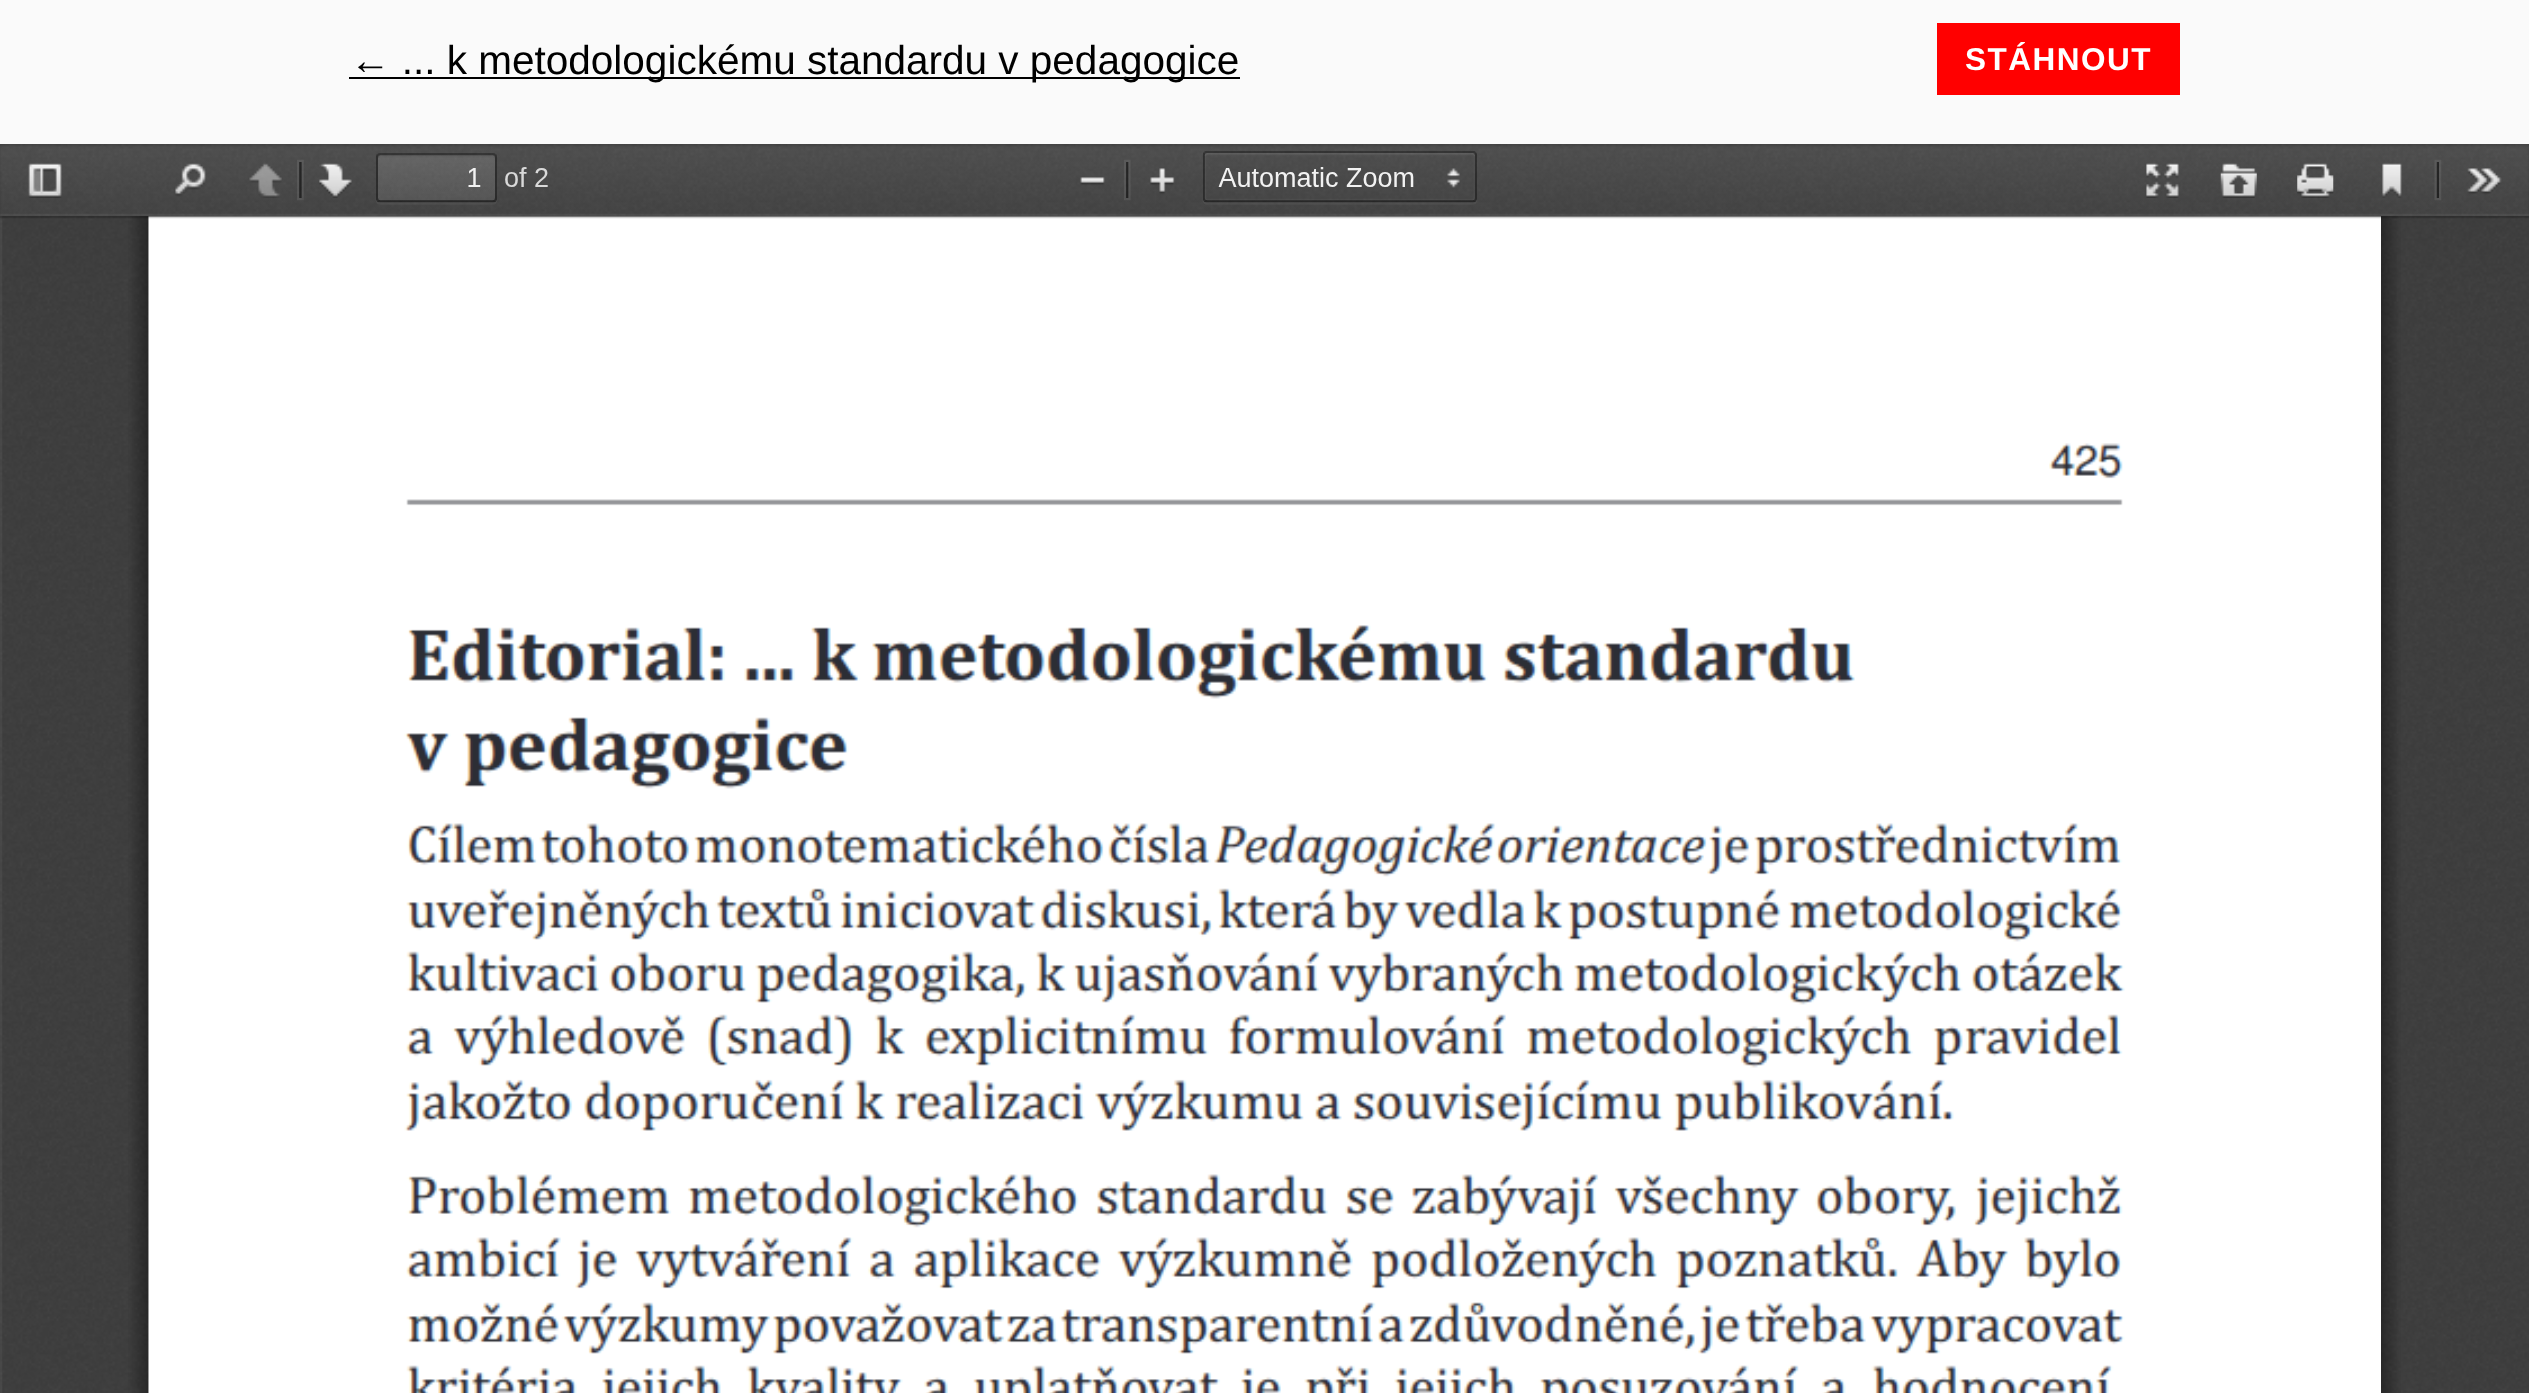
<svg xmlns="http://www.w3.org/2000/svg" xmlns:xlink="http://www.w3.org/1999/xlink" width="2529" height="1393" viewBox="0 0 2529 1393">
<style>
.cls-1{font:40.5px Liberation Sans;fill:#000000}
.cls-2{font:bold 31.5px Liberation Sans;letter-spacing:1.5px;fill:#ffffff}
</style>
<rect width="100%" height="100%" fill="#fafafa"/>
<rect fill="#000000" x="349" y="77" width="891" height="2"/>
<rect fill="#ff0000" x="1937" y="23" width="243" height="72"/>
<image xlink:href="image0.png" x="0" y="144" width="2529" height="1249"/>
<text class="cls-1" x="350" y="74">← ... k metodologickému standardu v pedagogice</text>
<text class="cls-2" x="1965" y="70">STÁHNOUT</text>
</svg>
